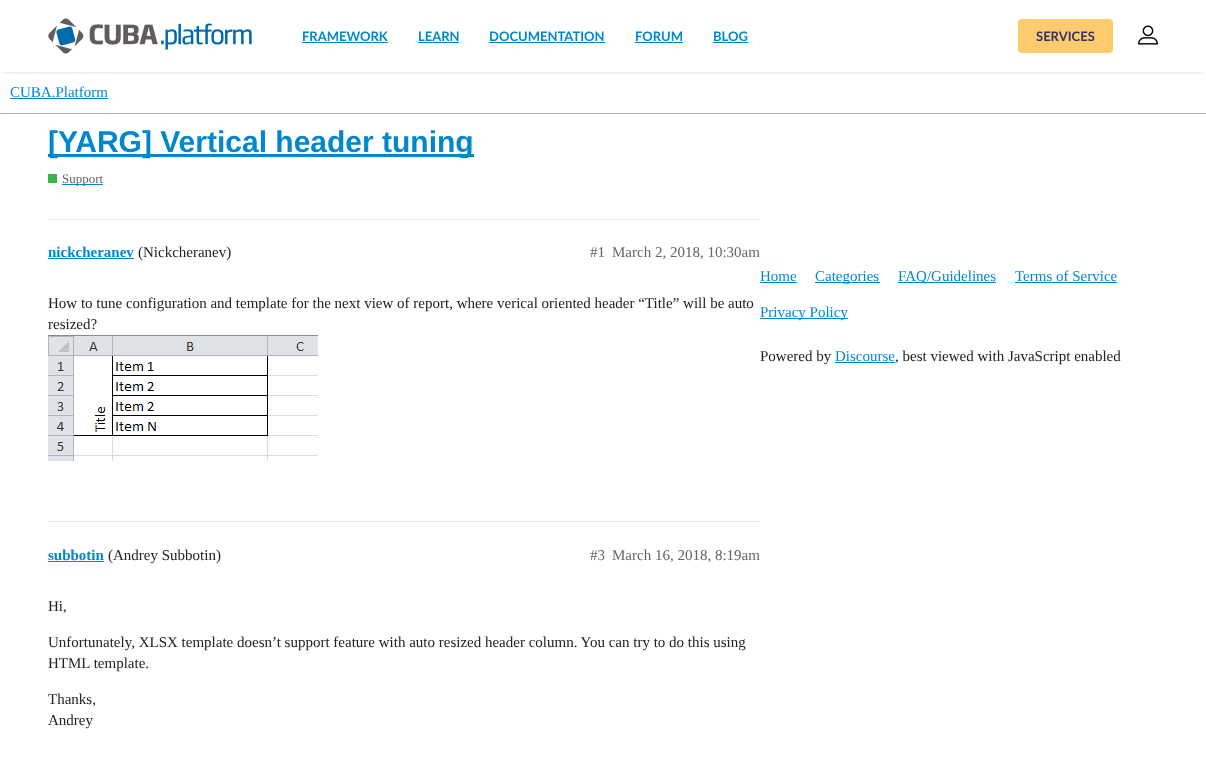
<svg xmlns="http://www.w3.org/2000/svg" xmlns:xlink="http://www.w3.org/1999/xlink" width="1206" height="781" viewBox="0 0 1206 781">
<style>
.cls-1{font:bold 13px Lato;fill:#0088cc}
.cls-2{font:bold 13px Lato;fill:#30336b}
.cls-3{font:15px Liberation Serif;fill:#0088cc}
.cls-4{font:bold 30px Liberation Sans;fill:#0088cc}
.cls-5{font:13px Liberation Serif;fill:#646464}
.cls-6{font:bold 15px Liberation Serif;fill:#0088cc}
.cls-7{font:15px Liberation Serif;fill:#222222}
.cls-8{font:15px Liberation Serif;fill:#646464}
</style>
<defs>
<clipPath id="clip1"><rect x="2" y="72" width="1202" height="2"/></clipPath>
</defs>
<rect width="100%" height="100%" fill="#ffffff"/>
<g clip-path="url(#clip1)">
<rect fill="#000000" fill-opacity="0.25" filter="blur(2.5px)" x="3" y="5" width="1200" height="66"/>
</g>
<image xlink:href="image0.png" x="48" y="18" width="204" height="36"/>
<rect fill="#0088cc" x="302" y="42" width="86" height="1"/>
<rect fill="#0088cc" x="418" y="42" width="41" height="1"/>
<rect fill="#0088cc" x="489" y="42" width="116" height="1"/>
<rect fill="#0088cc" x="635" y="42" width="48" height="1"/>
<rect fill="#0088cc" x="713" y="42" width="35" height="1"/>
<rect fill="#fdcb6e" x="1018" y="19" width="95" height="34" rx="4"/>
<image xlink:href="image1.png" x="1138" y="25" width="20" height="20"/>
<rect fill="#afafaf" x="0" y="113" width="1206" height="1"/>
<rect fill="#0088cc" x="10" y="98" width="98" height="1"/>
<rect fill="#0088cc" x="48" y="154" width="426" height="3"/>
<rect fill="#3ab54a" x="48" y="174" width="9" height="9"/>
<rect fill="#0088cc" x="62" y="184" width="41" height="1"/>
<rect fill="#e9e9e9" x="48" y="219" width="712" height="1"/>
<rect fill="#0088cc" x="48" y="258" width="86" height="1"/>
<image xlink:href="image2.png" x="48" y="335" width="270" height="126"/>
<rect fill="#e9e9e9" x="48" y="521" width="712" height="1"/>
<rect fill="#0088cc" x="48" y="561" width="56" height="1"/>
<rect fill="#0088cc" x="760" y="282" width="37" height="1"/>
<rect fill="#0088cc" x="815" y="282" width="65" height="1"/>
<rect fill="#0088cc" x="898" y="282" width="98" height="1"/>
<rect fill="#0088cc" x="1015" y="282" width="102" height="1"/>
<rect fill="#0088cc" x="760" y="318" width="88" height="1"/>
<rect fill="#0088cc" x="835" y="362" width="60" height="1"/>
<text class="cls-1" x="302" y="41">FRAMEWORK</text>
<text class="cls-1" x="418" y="41">LEARN</text>
<text class="cls-1" x="489" y="41">DOCUMENTATION</text>
<text class="cls-1" x="635" y="41">FORUM</text>
<text class="cls-1" x="713" y="41">BLOG</text>
<text class="cls-2" x="1036" y="41">SERVICES</text>
<text class="cls-3" x="10" y="97">CUBA.Platform</text>
<text class="cls-4" x="48" y="152">[YARG] Vertical header tuning</text>
<text class="cls-5" x="62" y="183">Support</text>
<text class="cls-6" x="48" y="257">nickcheranev</text>
<text class="cls-7" x="138" y="257">(Nickcheranev)</text>
<text class="cls-8" x="590" y="257">#1</text>
<text class="cls-8" x="612" y="257">March 2, 2018, 10:30am</text>
<text class="cls-7"><tspan x="48" y="308">How to tune configuration and template for the next view of report, where verical oriented header “Title” will be auto</tspan><tspan x="48" y="329">resized?</tspan></text>
<text class="cls-6" x="48" y="560">subbotin</text>
<text class="cls-7" x="108" y="560">(Andrey Subbotin)</text>
<text class="cls-8" x="590" y="560">#3</text>
<text class="cls-8" x="612" y="560">March 16, 2018, 8:19am</text>
<text class="cls-7" x="48" y="611">Hi,</text>
<text class="cls-7"><tspan x="48" y="647">Unfortunately, XLSX template doesn’t support feature with auto resized header column. You can try to do this using</tspan><tspan x="48" y="668">HTML template.</tspan></text>
<text class="cls-7"><tspan x="48" y="704">Thanks,</tspan><tspan x="48" y="725">Andrey</tspan></text>
<text class="cls-3" x="760" y="281">Home</text>
<text class="cls-3" x="815" y="281">Categories</text>
<text class="cls-3" x="898" y="281">FAQ/Guidelines</text>
<text class="cls-3" x="1015" y="281">Terms of Service</text>
<text class="cls-3" x="760" y="317">Privacy Policy</text>
<text class="cls-7" x="760" y="361">Powered by</text>
<text class="cls-3" x="835" y="361">Discourse</text>
<text class="cls-7" x="895" y="361">, best viewed with JavaScript enabled</text>
</svg>
